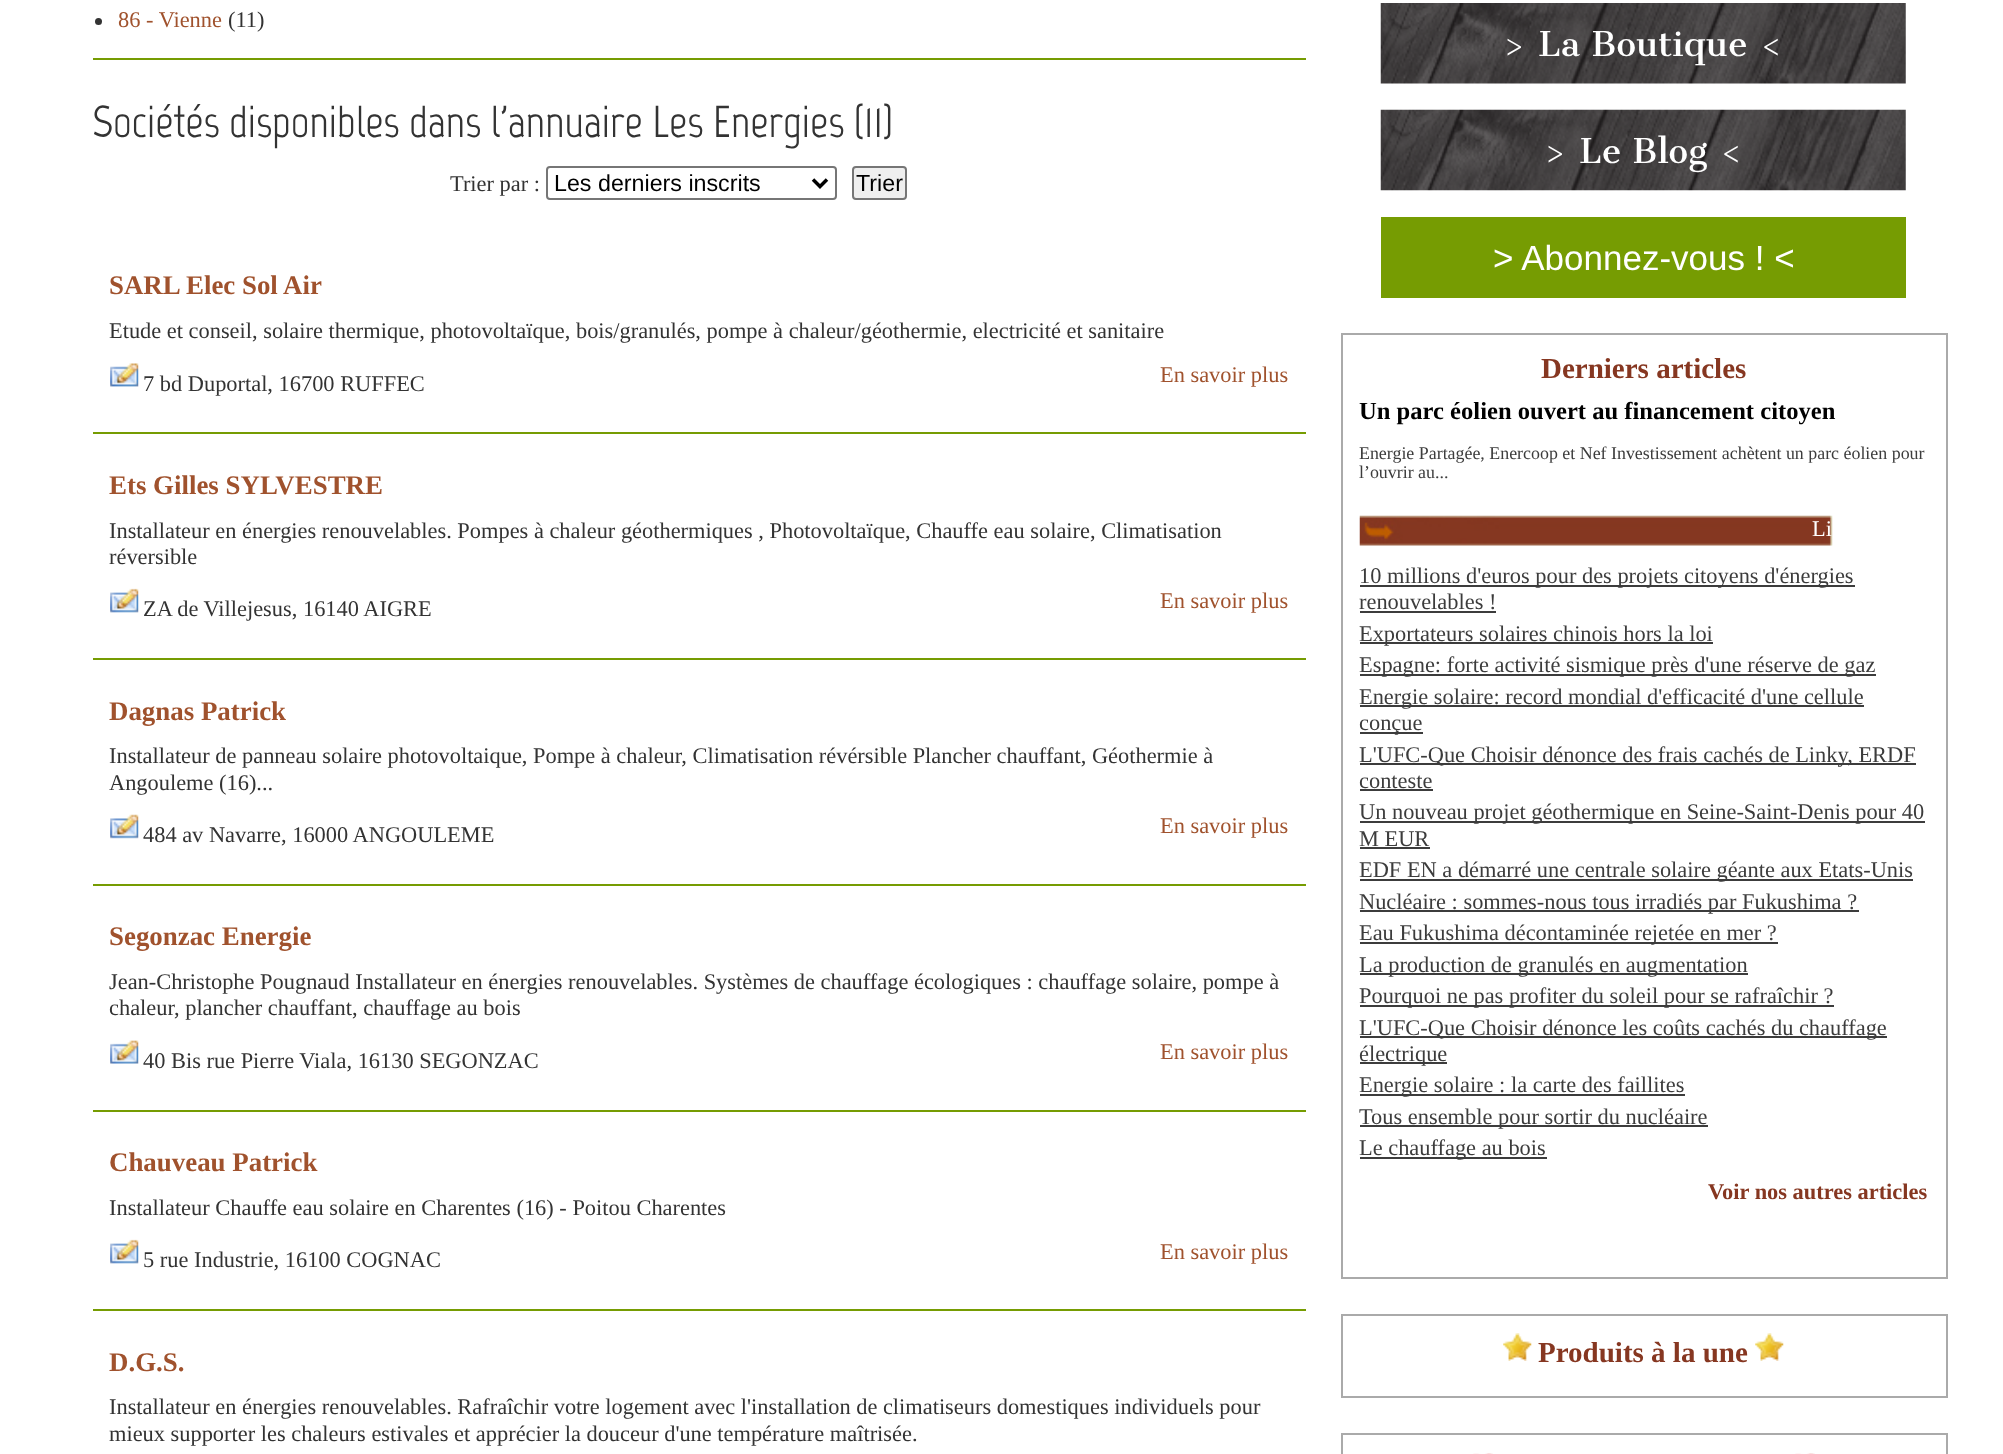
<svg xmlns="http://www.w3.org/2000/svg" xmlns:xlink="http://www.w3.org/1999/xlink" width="2003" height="1454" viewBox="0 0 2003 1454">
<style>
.cls-1{font:22.4px Liberation Serif;fill:#a0522d}
.cls-2{font:22.4px Liberation Serif;fill:#333333}
.cls-3{font:44.75px Marvel;fill:#333333}
.cls-4{font:23.25px Liberation Sans;fill:#000000}
.cls-5{font:bold 26.9px Liberation Serif;fill:#a0522d}
.cls-6{font:33.5px Cantata One;fill:#ffffff}
.cls-7{font:35px Liberation Sans;fill:#ffffff}
.cls-8{font:bold 29px Liberation Serif;fill:#863721}
.cls-9{font:bold 24.6px Liberation Serif;fill:#000000}
.cls-10{font:17.9px Liberation Serif;fill:#3c3c3c}
.cls-11{font:22.4px Liberation Serif;fill:#ffffff}
.cls-12{font:22.4px Liberation Serif;fill:#3c3c3c}
.cls-13{font:bold 22.4px Liberation Serif;fill:#863721}
</style>
<rect width="100%" height="100%" fill="#ffffff"/>
<rect fill="#769c02" x="93" y="58" width="1213" height="2"/>
<circle fill="#333333" cx="98.5" cy="21.5" r="3.5"/>
<rect fill="none" stroke="#767676" stroke-width="2" x="547" y="167" width="289" height="32" rx="3"/>
<path fill="none" stroke="#000000" stroke-width="3.5" d="M813 179.5L820 186.5L827 179.5"/>
<rect fill="#efefef" stroke="#767676" stroke-width="2" x="853" y="167" width="53" height="32" rx="3"/>
<rect fill="#769c02" x="93" y="432" width="1213" height="2"/>
<image xlink:href="image0.png" x="110" y="363" width="29" height="24"/>
<rect fill="#769c02" x="93" y="658" width="1213" height="2"/>
<image xlink:href="image1.png" x="110" y="588" width="29" height="25"/>
<rect fill="#769c02" x="93" y="884" width="1213" height="2"/>
<image xlink:href="image2.png" x="110" y="814" width="29" height="25"/>
<rect fill="#769c02" x="93" y="1110" width="1213" height="2"/>
<image xlink:href="image3.png" x="110" y="1040" width="29" height="24"/>
<rect fill="#769c02" x="93" y="1309" width="1213" height="2"/>
<image xlink:href="image1.png" x="110" y="1239" width="29" height="25"/>
<image xlink:href="image4.png" x="1380" y="3" width="526" height="81"/>
<image xlink:href="image5.png" x="1380" y="109" width="526" height="82"/>
<rect fill="#769c02" x="1381" y="217" width="525" height="81"/>
<rect fill="none" stroke="#aaaaaa" stroke-width="2" x="1342" y="334" width="605" height="944"/>
<image xlink:href="image6.png" x="1359" y="515" width="474" height="31"/>
<rect fill="#3c3c3c" x="1360" y="585" width="495" height="2"/>
<rect fill="#3c3c3c" x="1360" y="611" width="136" height="2"/>
<rect fill="#3c3c3c" x="1360" y="642" width="353" height="2"/>
<rect fill="#3c3c3c" x="1360" y="674" width="516" height="2"/>
<rect fill="#3c3c3c" x="1360" y="705" width="504" height="2"/>
<rect fill="#3c3c3c" x="1360" y="732" width="63" height="2"/>
<rect fill="#3c3c3c" x="1360" y="763" width="556" height="2"/>
<rect fill="#3c3c3c" x="1360" y="789" width="73" height="2"/>
<rect fill="#3c3c3c" x="1360" y="821" width="565" height="2"/>
<rect fill="#3c3c3c" x="1360" y="847" width="70" height="2"/>
<rect fill="#3c3c3c" x="1360" y="879" width="553" height="2"/>
<rect fill="#3c3c3c" x="1360" y="910" width="499" height="2"/>
<rect fill="#3c3c3c" x="1360" y="942" width="418" height="2"/>
<rect fill="#3c3c3c" x="1360" y="973" width="388" height="2"/>
<rect fill="#3c3c3c" x="1360" y="1005" width="474" height="2"/>
<rect fill="#3c3c3c" x="1360" y="1036" width="527" height="2"/>
<rect fill="#3c3c3c" x="1360" y="1062" width="87" height="2"/>
<rect fill="#3c3c3c" x="1360" y="1094" width="325" height="2"/>
<rect fill="#3c3c3c" x="1360" y="1125" width="348" height="2"/>
<rect fill="#3c3c3c" x="1360" y="1157" width="187" height="2"/>
<rect fill="none" stroke="#aaaaaa" stroke-width="2" x="1342" y="1315" width="605" height="82"/>
<image xlink:href="image7.png" x="1503" y="1333" width="29" height="28"/>
<image xlink:href="image7.png" x="1755" y="1333" width="29" height="28"/>
<rect fill="none" stroke="#aaaaaa" stroke-width="2" x="1342" y="1434" width="605" height="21"/>
<image xlink:href="image8.png" x="1473" y="1453" width="20" height="1"/>
<image xlink:href="image9.png" x="1795" y="1453" width="20" height="1"/>
<text class="cls-1" x="118" y="27">86 - Vienne</text>
<text class="cls-2" x="228" y="27">(11)</text>
<text class="cls-3" x="92" y="137">Sociétés disponibles dans l'annuaire Les Energies (11)</text>
<text class="cls-2" x="450" y="191">Trier par :</text>
<text class="cls-4" x="554" y="191">Les derniers inscrits</text>
<text class="cls-4" x="856" y="191">Trier</text>
<text class="cls-5" x="109" y="294">SARL Elec Sol Air</text>
<text class="cls-2" x="109" y="338">Etude et conseil, solaire thermique, photovoltaïque, bois/granulés, pompe à chaleur/géothermie, electricité et sanitaire</text>
<text class="cls-2" x="143" y="391">7 bd Duportal, 16700 RUFFEC</text>
<text class="cls-1" x="1160" y="382">En savoir plus</text>
<text class="cls-5" x="109" y="494">Ets Gilles SYLVESTRE</text>
<text class="cls-2"><tspan x="109" y="538">Installateur en énergies renouvelables. Pompes à chaleur géothermiques , Photovoltaïque, Chauffe eau solaire, Climatisation</tspan><tspan x="109" y="564">réversible</tspan></text>
<text class="cls-2" x="143" y="616">ZA de Villejesus, 16140 AIGRE</text>
<text class="cls-1" x="1160" y="608">En savoir plus</text>
<text class="cls-5" x="109" y="720">Dagnas Patrick</text>
<text class="cls-2"><tspan x="109" y="763">Installateur de panneau solaire photovoltaique, Pompe à chaleur, Climatisation révérsible Plancher chauffant, Géothermie à</tspan><tspan x="109" y="790">Angouleme (16)...</tspan></text>
<text class="cls-2" x="143" y="842">484 av Navarre, 16000 ANGOULEME</text>
<text class="cls-1" x="1160" y="833">En savoir plus</text>
<text class="cls-5" x="109" y="945">Segonzac Energie</text>
<text class="cls-2"><tspan x="109" y="989">Jean-Christophe Pougnaud Installateur en énergies renouvelables. Systèmes de chauffage écologiques : chauffage solaire, pompe à</tspan><tspan x="109" y="1015">chaleur, plancher chauffant, chauffage au bois</tspan></text>
<text class="cls-2" x="143" y="1068">40 Bis rue Pierre Viala, 16130 SEGONZAC</text>
<text class="cls-1" x="1160" y="1059">En savoir plus</text>
<text class="cls-5" x="109" y="1171">Chauveau Patrick</text>
<text class="cls-2" x="109" y="1215">Installateur Chauffe eau solaire en Charentes (16) - Poitou Charentes</text>
<text class="cls-2" x="143" y="1267">5 rue Industrie, 16100 COGNAC</text>
<text class="cls-1" x="1160" y="1259">En savoir plus</text>
<text class="cls-5" x="109" y="1371">D.G.S.</text>
<text class="cls-2"><tspan x="109" y="1414">Installateur en énergies renouvelables. Rafraîchir votre logement avec l'installation de climatiseurs domestiques individuels pour</tspan><tspan x="109" y="1441">mieux supporter les chaleurs estivales et apprécier la douceur d'une température maîtrisée.</tspan></text>
<text class="cls-6" x="1502" y="56">&gt; La Boutique &lt;</text>
<text class="cls-6" x="1543" y="163">&gt; Le Blog &lt;</text>
<text class="cls-7" x="1493" y="270">&gt; Abonnez-vous ! &lt;</text>
<text class="cls-8" x="1541" y="378">Derniers articles</text>
<text class="cls-9" x="1359" y="419">Un parc éolien ouvert au financement citoyen</text>
<text class="cls-10"><tspan x="1359" y="459">Energie Partagée, Enercoop et Nef Investissement achètent un parc éolien pour</tspan><tspan x="1359" y="478">l’ouvrir au...</tspan></text>
<text class="cls-11" x="1812" y="536">Li</text>
<text class="cls-12"><tspan x="1359" y="583">10 millions d'euros pour des projets citoyens d'énergies</tspan><tspan x="1359" y="609">renouvelables !</tspan><tspan x="1359" y="641">Exportateurs solaires chinois hors la loi</tspan><tspan x="1359" y="672">Espagne: forte activité sismique près d'une réserve de gaz</tspan><tspan x="1359" y="704">Energie solaire: record mondial d'efficacité d'une cellule</tspan><tspan x="1359" y="730">conçue</tspan><tspan x="1359" y="762">L'UFC-Que Choisir dénonce des frais cachés de Linky, ERDF</tspan><tspan x="1359" y="788">conteste</tspan><tspan x="1359" y="819">Un nouveau projet géothermique en Seine-Saint-Denis pour 40</tspan><tspan x="1359" y="846">M EUR</tspan><tspan x="1359" y="877">EDF EN a démarré une centrale solaire géante aux Etats-Unis</tspan><tspan x="1359" y="909">Nucléaire : sommes-nous tous irradiés par Fukushima ?</tspan><tspan x="1359" y="940">Eau Fukushima décontaminée rejetée en mer ?</tspan><tspan x="1359" y="972">La production de granulés en augmentation</tspan><tspan x="1359" y="1003">Pourquoi ne pas profiter du soleil pour se rafraîchir ?</tspan><tspan x="1359" y="1035">L'UFC-Que Choisir dénonce les coûts cachés du chauffage</tspan><tspan x="1359" y="1061">électrique</tspan><tspan x="1359" y="1092">Energie solaire : la carte des faillites</tspan><tspan x="1359" y="1124">Tous ensemble pour sortir du nucléaire</tspan><tspan x="1359" y="1155">Le chauffage au bois</tspan></text>
<text class="cls-13" x="1708" y="1199">Voir nos autres articles</text>
<text class="cls-8" x="1538" y="1362">Produits à la une</text>
</svg>
